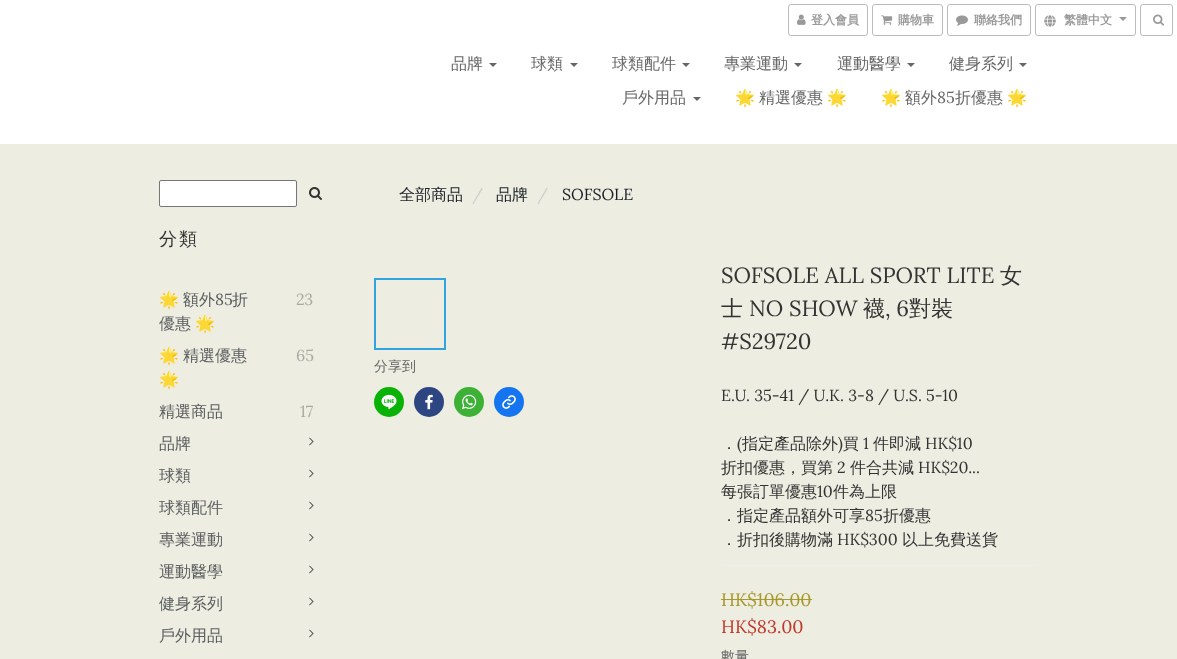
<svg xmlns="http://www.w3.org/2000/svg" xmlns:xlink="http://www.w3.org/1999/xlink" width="1177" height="659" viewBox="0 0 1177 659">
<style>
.cls-1{font:bold 12px WenQuanYi Zen Hei;fill:#999999}
.cls-2{font:500 16px WenQuanYi Zen Hei;fill:#666666}
.cls-3{font:16px Noto Color Emoji;fill:#666666}
.cls-4{font:16px Lora;fill:#666666}
.cls-5{font:500 18px WenQuanYi Zen Hei;letter-spacing:2px;fill:#333333}
.cls-6{font:16px Noto Color Emoji;fill:#5a5e5e}
.cls-7{font:500 16px WenQuanYi Zen Hei;fill:#5a5e5e}
.cls-8{font:16px Lora;fill:#5a5e5e}
.cls-9{font:16px Lora;fill:#aaaaa4}
.cls-10{font:500 16px WenQuanYi Zen Hei;fill:#1b2026}
.cls-11{font:16px Lora;fill:#cccccc}
.cls-12{font:16px Lora;fill:#1b2026}
.cls-13{font:500 14px WenQuanYi Zen Hei;fill:#666666}
.cls-14{font:22px Lora;fill:#333333}
.cls-15{font:500 22px WenQuanYi Zen Hei;fill:#333333}
.cls-16{font:16px Lora;fill:#333333}
.cls-17{font:500 16px WenQuanYi Zen Hei;fill:#333333}
.cls-18{font:18px Lora;fill:#a79a2d}
.cls-19{font:18px Lora;fill:#c0392b}
</style>
<rect width="100%" height="100%" fill="#eeede2"/>
<rect fill="#ffffff" x="0" y="0" width="1177" height="144"/>
<rect fill="none" stroke="#bbbbbb" x="788.5" y="4.5" width="79" height="31" rx="2.5"/>
<image xlink:href="image0.png" x="797" y="14" width="9" height="11"/>
<rect fill="none" stroke="#bbbbbb" x="872.5" y="4.5" width="70" height="31" rx="2.5"/>
<image xlink:href="image1.png" x="881" y="15" width="12" height="10"/>
<rect fill="none" stroke="#bbbbbb" x="947.5" y="4.5" width="83" height="31" rx="2.5"/>
<image xlink:href="image2.png" x="956" y="15" width="12" height="11"/>
<rect fill="none" stroke="#bbbbbb" x="1035.5" y="4.5" width="100" height="31" rx="2.5"/>
<image xlink:href="image3.png" x="1044" y="15" width="12" height="12"/>
<path fill="#999999" d="M1119 17H1127L1123 21Z"/>
<rect fill="none" stroke="#bbbbbb" x="1140.5" y="4.5" width="32" height="31" rx="2.5"/>
<image xlink:href="image4.png" x="1153" y="14" width="11" height="12"/>
<path fill="#666666" d="M489 63H497L493 67Z"/>
<path fill="#666666" d="M570 63H578L574 67Z"/>
<path fill="#666666" d="M682 63H690L686 67Z"/>
<path fill="#666666" d="M794 63H802L798 67Z"/>
<path fill="#666666" d="M907 63H915L911 67Z"/>
<path fill="#666666" d="M1019 63H1027L1023 67Z"/>
<path fill="#666666" d="M693 97H701L697 101Z"/>
<rect fill="#ffffff" stroke="#767676" x="159.5" y="180.5" width="137" height="26" rx="1.5"/>
<image xlink:href="image5.png" x="309" y="187" width="13" height="13"/>
<image xlink:href="image6.png" x="309" y="437" width="5" height="9"/>
<image xlink:href="image6.png" x="309" y="469" width="5" height="9"/>
<image xlink:href="image6.png" x="309" y="501" width="5" height="9"/>
<image xlink:href="image6.png" x="309" y="533" width="5" height="9"/>
<image xlink:href="image6.png" x="309" y="565" width="5" height="9"/>
<image xlink:href="image6.png" x="309" y="597" width="5" height="9"/>
<image xlink:href="image6.png" x="309" y="629" width="5" height="9"/>
<rect fill="none" stroke="#30a4e1" stroke-width="2" x="375" y="279" width="70" height="70"/>
<circle fill="#09b305" cx="389" cy="402" r="15"/>
<image xlink:href="image7.png" x="381" y="394" width="16" height="16"/>
<circle fill="#2d4682" cx="429" cy="402" r="15"/>
<image xlink:href="image8.png" x="425" y="394" width="8" height="16"/>
<circle fill="#3cb136" cx="469" cy="402" r="15"/>
<image xlink:href="image9.png" x="461" y="394" width="16" height="16"/>
<circle fill="#1575f0" cx="509" cy="402" r="15"/>
<image xlink:href="image10.png" x="502" y="395" width="14" height="14"/>
<rect fill="#eeeeee" x="721" y="565" width="318" height="1"/>
<rect fill="#a79a2d" x="721" y="599" width="91" height="1"/>
<text class="cls-1" x="811" y="24">登入會員</text>
<text class="cls-1" x="898" y="24">購物車</text>
<text class="cls-1" x="974" y="24">聯絡我們</text>
<text class="cls-1" x="1064" y="24">繁體中文</text>
<text class="cls-2" x="451" y="69">品牌</text>
<text class="cls-2" x="531" y="69">球類</text>
<text class="cls-2" x="612" y="69">球類配件</text>
<text class="cls-2" x="724" y="69">專業運動</text>
<text class="cls-2" x="837" y="69">運動醫學</text>
<text class="cls-2" x="949" y="69">健身系列</text>
<text class="cls-2" x="622" y="103">戶外用品</text>
<text class="cls-3" x="735" y="103">🌟</text>
<text class="cls-2" x="759" y="103">精選優惠</text>
<text class="cls-3" x="827" y="103">🌟</text>
<text class="cls-3" x="881" y="103">🌟</text>
<text class="cls-2" x="905" y="103">額外</text>
<text class="cls-4" x="937" y="103">85</text>
<text class="cls-2" x="955" y="103">折優惠</text>
<text class="cls-3" x="1007" y="103">🌟</text>
<text class="cls-5" x="159" y="245">分類</text>
<text class="cls-6" x="159" y="305">🌟</text>
<text class="cls-7" x="183" y="305">額外</text>
<text class="cls-8" x="215" y="305">85</text>
<text class="cls-7" x="232" y="305">折</text>
<text class="cls-7" x="159" y="329">優惠</text>
<text class="cls-6" x="195" y="329">🌟</text>
<text class="cls-9" x="296" y="305">23</text>
<text class="cls-6" x="159" y="361">🌟</text>
<text class="cls-7" x="183" y="361">精選優惠</text>
<text class="cls-6" x="159" y="385">🌟</text>
<text class="cls-9" x="296" y="361">65</text>
<text class="cls-7" x="159" y="417">精選商品</text>
<text class="cls-9" x="300" y="417">17</text>
<text class="cls-7" x="159" y="449">品牌</text>
<text class="cls-7" x="159" y="481">球類</text>
<text class="cls-7" x="159" y="513">球類配件</text>
<text class="cls-7" x="159" y="545">專業運動</text>
<text class="cls-7" x="159" y="577">運動醫學</text>
<text class="cls-7" x="159" y="609">健身系列</text>
<text class="cls-7" x="159" y="641">戶外用品</text>
<text class="cls-10" x="399" y="200">全部商品</text>
<text class="cls-11" x="472" y="200">/</text>
<text class="cls-10" x="496" y="200">品牌</text>
<text class="cls-11" x="537" y="200">/</text>
<text class="cls-12" x="562" y="200">SOFSOLE</text>
<text class="cls-13" x="374" y="371">分享到</text>
<text class="cls-14" x="721" y="283">SOFSOLE ALL SPORT LITE</text>
<text class="cls-15" x="1000" y="283">女</text>
<text class="cls-15" x="721" y="316">士</text>
<text class="cls-14" x="749" y="316">NO SHOW</text>
<text class="cls-15" x="863" y="316">襪</text>
<text class="cls-14" x="885" y="316">, 6</text>
<text class="cls-15" x="909" y="316">對裝</text>
<text class="cls-14" x="721" y="349">#S29720</text>
<text class="cls-16" x="721" y="401">E.U. 35-41 / U.K. 3-8 / U.S. 5-10</text>
<text class="cls-16" x="737" y="449">(</text>
<text class="cls-17" x="742" y="449">指定產品除外 買</text>
<text class="cls-17" x="873" y="449">件即減</text>
<text class="cls-16" x="925" y="449">HK$10</text>
<text class="cls-17" x="721" y="449">．</text>
<text class="cls-16" x="838" y="449">)</text>
<text class="cls-16" x="863" y="449">1</text>
<text class="cls-17" x="721" y="473">折扣優惠，買第</text>
<text class="cls-16" x="837" y="473">2</text>
<text class="cls-17" x="850" y="473">件合共減</text>
<text class="cls-16" x="918" y="473">HK$20...</text>
<text class="cls-17" x="721" y="497">每張訂單優惠</text>
<text class="cls-16" x="817" y="497">10</text>
<text class="cls-17" x="833" y="497">件為上限</text>
<text class="cls-17" x="721" y="521">．指定產品額外可享</text>
<text class="cls-16" x="865" y="521">85</text>
<text class="cls-17" x="883" y="521">折優惠</text>
<text class="cls-17" x="721" y="545">．折扣後購物滿</text>
<text class="cls-16" x="837" y="545">HK$300</text>
<text class="cls-17" x="902" y="545">以上免費送貨</text>
<text class="cls-18" x="721" y="606">HK$106.00</text>
<text class="cls-19" x="721" y="633">HK$83.00</text>
<text class="cls-13" x="721" y="661">數量</text>
</svg>
